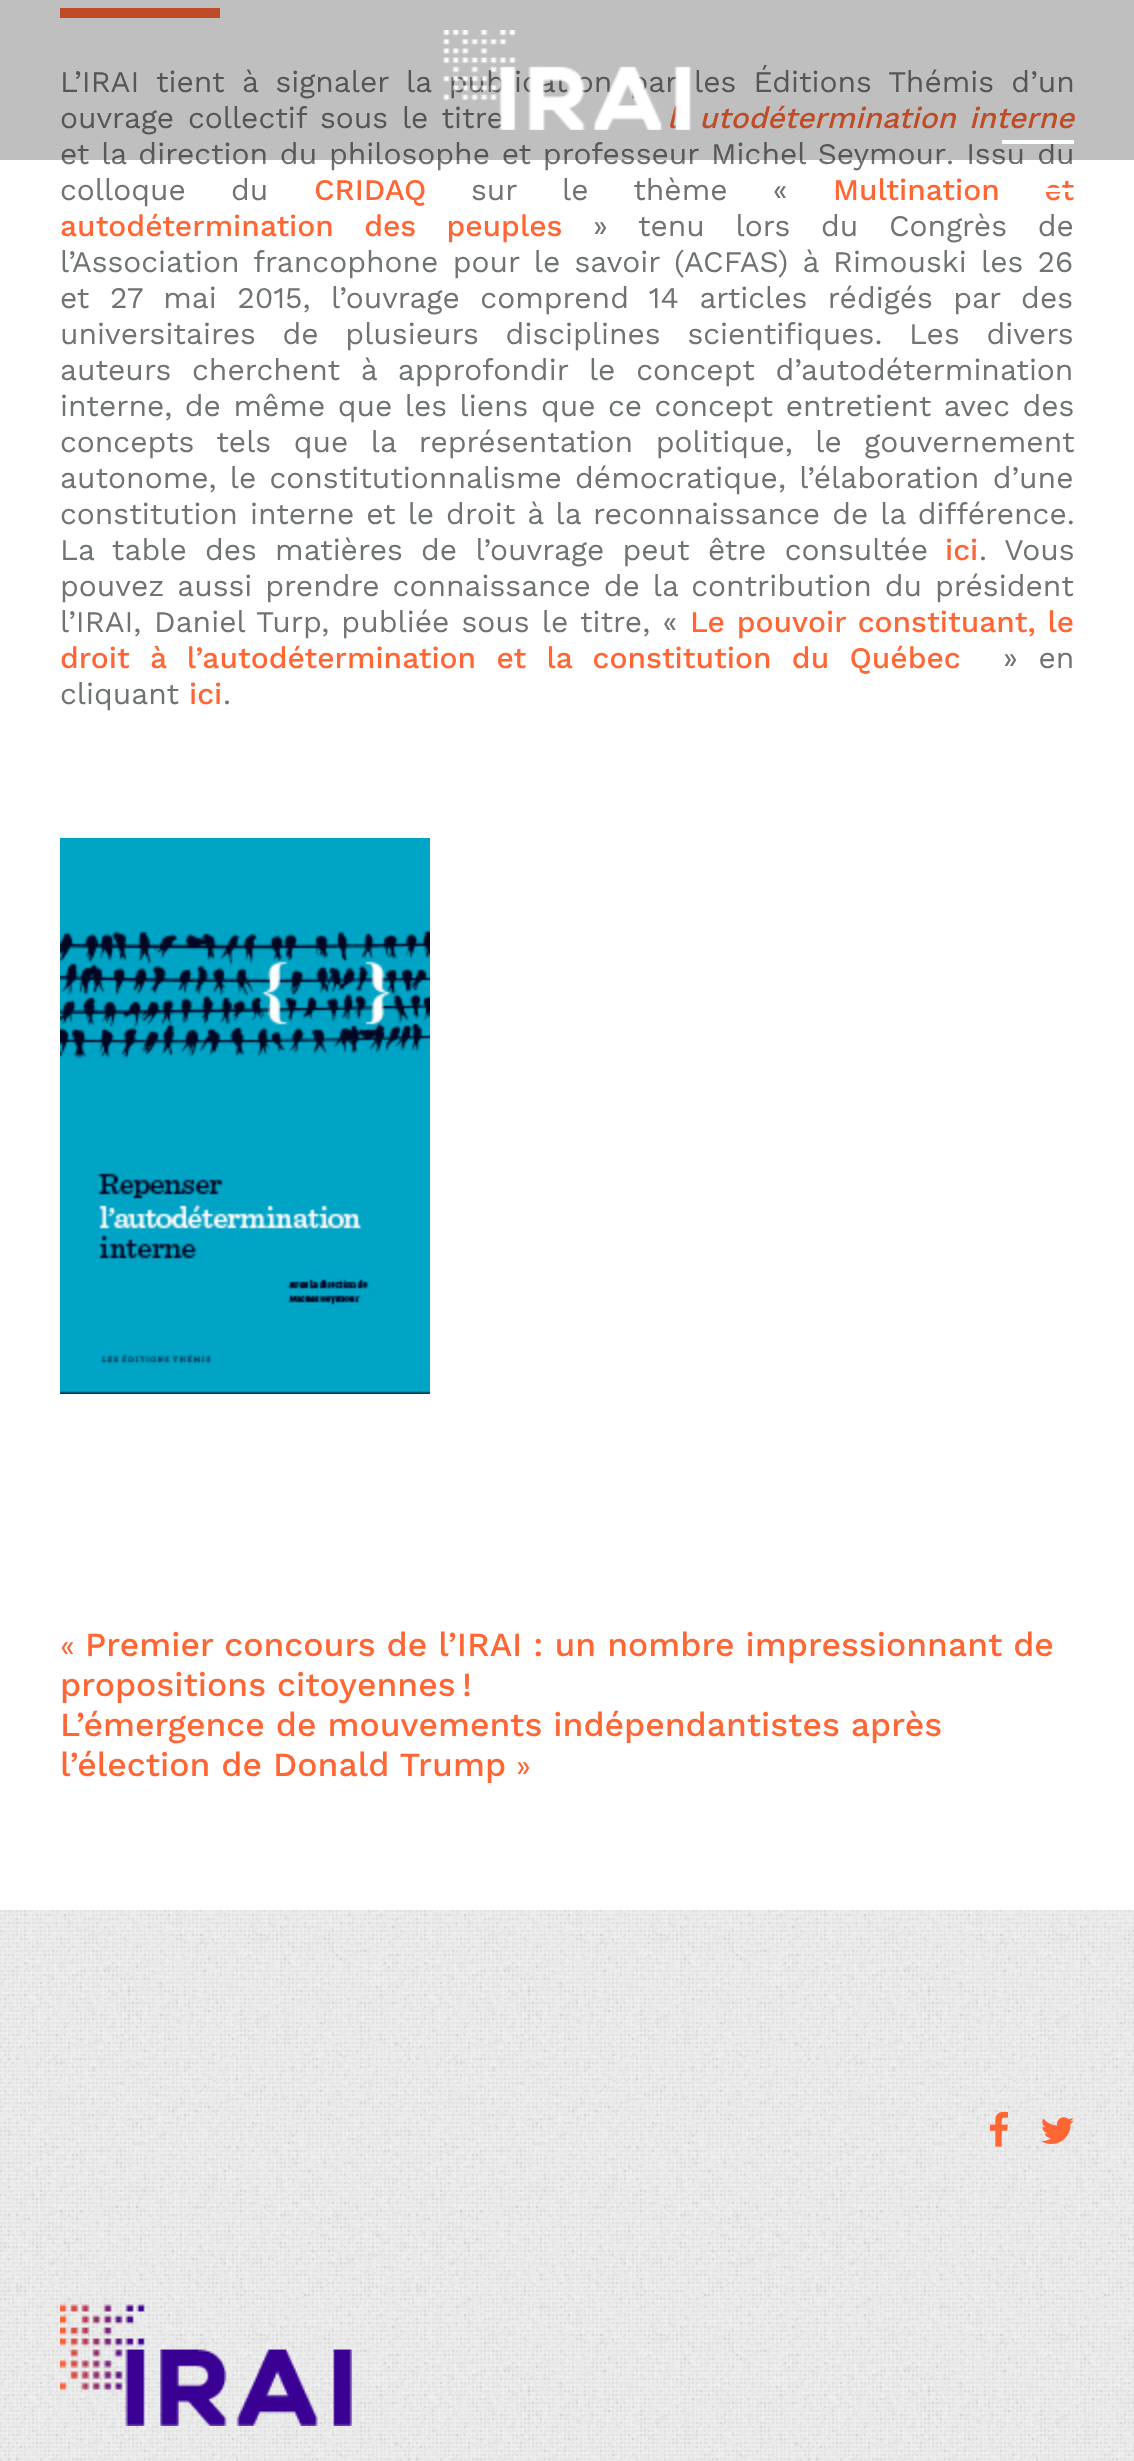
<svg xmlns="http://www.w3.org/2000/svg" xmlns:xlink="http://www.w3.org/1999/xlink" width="1134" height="2461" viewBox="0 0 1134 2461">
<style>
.cls-1{font:30px Work Sans;fill:#707374}
.cls-2{font:italic 500 30px Work Sans;fill:#ff6633}
.cls-3{font:500 30px Work Sans;fill:#ff6633}
.cls-4{font:30px Work Sans;fill:#ff6633}
.cls-5{font:500 33.75px Work Sans;fill:#ff6633}
</style>
<rect width="100%" height="100%" fill="#ffffff"/>
<rect fill="#ff6633" x="60" y="8" width="160" height="10"/>
<image xlink:href="image1.png" x="60" y="838" width="370" height="556"/>
<image xlink:href="image2.png" x="0" y="1910" width="1134" height="551"/>
<image xlink:href="image3.png" x="990" y="2111" width="19" height="36"/>
<image xlink:href="image4.png" x="1041" y="2117" width="33" height="27"/>
<image xlink:href="image5.png" x="60" y="2304" width="292" height="122"/>
<text class="cls-1"><tspan x="60" y="92" word-spacing="7">L’IRAI tient à signaler la publication par les Éditions Thémis d’un</tspan><tspan x="60" y="128" word-spacing="3.5">ouvrage collectif sous le titre</tspan></text>
<text class="cls-2" x="667" y="128" word-spacing="3.5">l</text>
<text class="cls-2" x="699" y="128" word-spacing="3.5">utodétermination interne</text>
<text class="cls-1" x="60" y="164" word-spacing="1.5">et la direction du philosophe et professeur</text>
<text class="cls-1" x="711" y="164" word-spacing="2">Michel Seymour</text>
<text class="cls-1" x="946" y="164" word-spacing="2">. Issu du</text>
<rect fill="#ffffff" x="1012" y="164" width="62" height="1"/>
<rect fill="#000000" fill-opacity="0.25" x="0" y="0" width="1134" height="160"/>
<rect fill="#ffffff" x="1002" y="140" width="72" height="4"/>
<image xlink:href="image0.png" x="443" y="30" width="249" height="100"/>
<text class="cls-1" x="60" y="200" word-spacing="35">colloque du</text>
<text class="cls-3" x="314" y="200">CRIDAQ</text>
<text class="cls-1" x="471" y="200" word-spacing="35">sur le thème «</text>
<text class="cls-3" x="833" y="200" word-spacing="35">Multination et</text>
<rect fill="#ffffff" x="1045" y="188" width="29" height="4"/>
<text class="cls-3" x="60" y="236" word-spacing="20.5">autodétermination des peuples</text>
<text class="cls-1" x="593" y="236" word-spacing="20.5">» tenu lors du Congrès de</text>
<text class="cls-1"><tspan x="60" y="272" word-spacing="4">l’Association francophone pour le savoir (ACFAS) à Rimouski les 26</tspan><tspan x="60" y="308" word-spacing="10.25">et 27 mai 2015, l’ouvrage comprend 14 articles rédigés par des</tspan><tspan x="60" y="344" word-spacing="16.5">universitaires de plusieurs disciplines scientifiques. Les divers</tspan><tspan x="60" y="380" word-spacing="10.5">auteurs cherchent à approfondir le concept d’autodétermination</tspan><tspan x="60" y="416" word-spacing="2.25">interne, de même que les liens que ce concept entretient avec des</tspan><tspan x="60" y="452" word-spacing="12.25">concepts tels que la représentation politique, le gouvernement</tspan><tspan x="60" y="488" word-spacing="3">autonome, le constitutionnalisme démocratique, l’élaboration d’une</tspan><tspan x="60" y="524" word-spacing="1.75">constitution interne et le droit à la reconnaissance de la différence.</tspan><tspan x="60" y="560" word-spacing="8">La table des matières de l’ouvrage peut être consultée</tspan></text>
<text class="cls-3" x="945" y="560">ici</text>
<text class="cls-1" x="979" y="560" word-spacing="8">. Vous</text>
<text class="cls-1"><tspan x="60" y="596" word-spacing="2.75">pouvez aussi prendre connaissance de la contribution du président</tspan><tspan x="60" y="632">l’IRAI,</tspan></text>
<text class="cls-1" x="154" y="632" word-spacing="2">Daniel Turp, publiée sous le titre, «</text>
<text class="cls-3" x="690" y="632" word-spacing="2">Le pouvoir constituant, le</text>
<text class="cls-3" x="60" y="668" word-spacing="10.5">droit à l’autodétermination et la constitution du Québec</text>
<text class="cls-1" x="1003" y="668" word-spacing="10.5">» en</text>
<text class="cls-1" x="60" y="704">cliquant</text>
<text class="cls-3" x="189" y="704">ici</text>
<text class="cls-1" x="223" y="704">.</text>
<text class="cls-4" x="60" y="1656">«</text>
<text class="cls-5" x="85" y="1656">Premier concours de l’IRAI : un nombre impressionnant de</text>
<text class="cls-5"><tspan x="60" y="1696">propositions citoyennes !</tspan><tspan x="60" y="1736">L’émergence de mouvements indépendantistes après</tspan><tspan x="60" y="1776">l’élection de Donald Trump</tspan></text>
<text class="cls-4" x="516" y="1776">»</text>
</svg>
